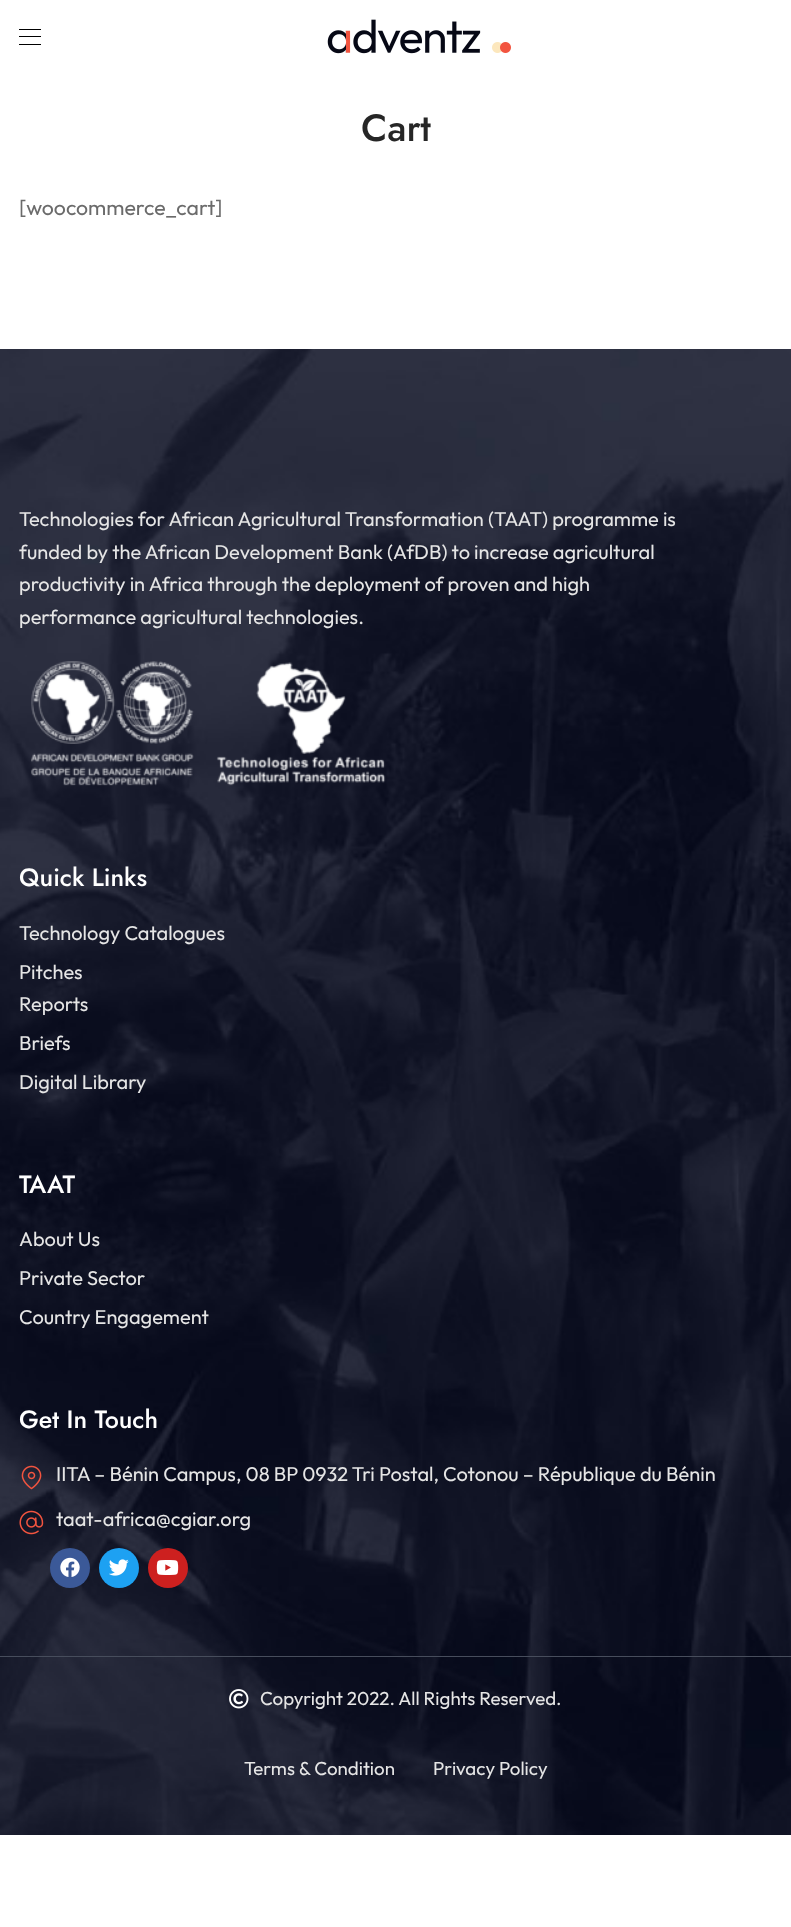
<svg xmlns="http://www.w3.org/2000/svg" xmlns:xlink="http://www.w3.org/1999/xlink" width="791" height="1927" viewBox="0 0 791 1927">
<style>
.cls-1{font:500 38px Jost;fill:#262626}
.cls-2{font:100 21.25px Outfit;fill:#6b6b6b}
.cls-3{font:100 20px Outfit;fill:#e5e5e5}
.cls-4{font:500 25px Jost;fill:#ffffff}
.cls-5{font:100 18.75px Outfit;fill:#e5e5e5}
</style>
<rect width="100%" height="100%" fill="#ffffff"/>
<rect fill="#000000" x="19" y="29" width="22" height="1"/>
<rect fill="#000000" x="19" y="36" width="22" height="1"/>
<rect fill="#000000" x="19" y="44" width="22" height="1"/>
<image xlink:href="image0.png" x="327" y="19" width="184" height="35"/>
<image xlink:href="image1.png" x="0" y="349" width="791" height="1486"/>
<image xlink:href="image2.png" x="31" y="661" width="355" height="125"/>
<image xlink:href="image3.png" x="21" y="1465" width="21" height="25"/>
<image xlink:href="image4.png" x="19" y="1510" width="25" height="25"/>
<circle fill="#3b5998" cx="70" cy="1568" r="20"/>
<image xlink:href="image5.png" x="60" y="1557" width="20" height="20"/>
<circle fill="#1da1f2" cx="119" cy="1568" r="20"/>
<image xlink:href="image6.png" x="109" y="1559" width="20" height="17"/>
<circle fill="#cd201f" cx="168" cy="1568" r="20"/>
<image xlink:href="image7.png" x="156" y="1560" width="23" height="15"/>
<rect fill="#474d5c" x="0" y="1656" width="791" height="1"/>
<image xlink:href="image8.png" x="229" y="1689" width="20" height="20"/>
<text class="cls-1" x="361" y="141">Cart</text>
<text class="cls-2" x="19" y="215">[woocommerce_cart]</text>
<text class="cls-3"><tspan x="19" y="526">Technologies for African Agricultural Transformation (TAAT) programme is</tspan><tspan x="19" y="559">funded by the African Development Bank (AfDB) to increase agricultural</tspan><tspan x="19" y="591">productivity in Africa through the deployment of proven and high</tspan><tspan x="19" y="624">performance agricultural technologies.</tspan></text>
<text class="cls-4" x="19" y="886">Quick Links</text>
<text class="cls-3"><tspan x="19" y="940">Technology Catalogues</tspan><tspan x="19" y="979">Pitches</tspan><tspan x="19" y="1011">Reports</tspan><tspan x="19" y="1050">Briefs</tspan><tspan x="19" y="1089">Digital Library</tspan></text>
<text class="cls-4" x="19" y="1193">TAAT</text>
<text class="cls-3"><tspan x="19" y="1246">About Us</tspan><tspan x="19" y="1285">Private Sector</tspan><tspan x="19" y="1324">Country Engagement</tspan></text>
<text class="cls-4" x="19" y="1428">Get In Touch</text>
<text class="cls-3" x="56" y="1481">IITA – Bénin Campus, 08 BP 0932 Tri Postal, Cotonou – République du Bénin</text>
<text class="cls-3" x="56" y="1526">taat-africa@cgiar.org</text>
<text class="cls-5" x="260" y="1705">Copyright 2022. All Rights Reserved.</text>
<text class="cls-5" x="244" y="1775">Terms &amp; Condition</text>
<text class="cls-5" x="433" y="1775">Privacy Policy</text>
</svg>
